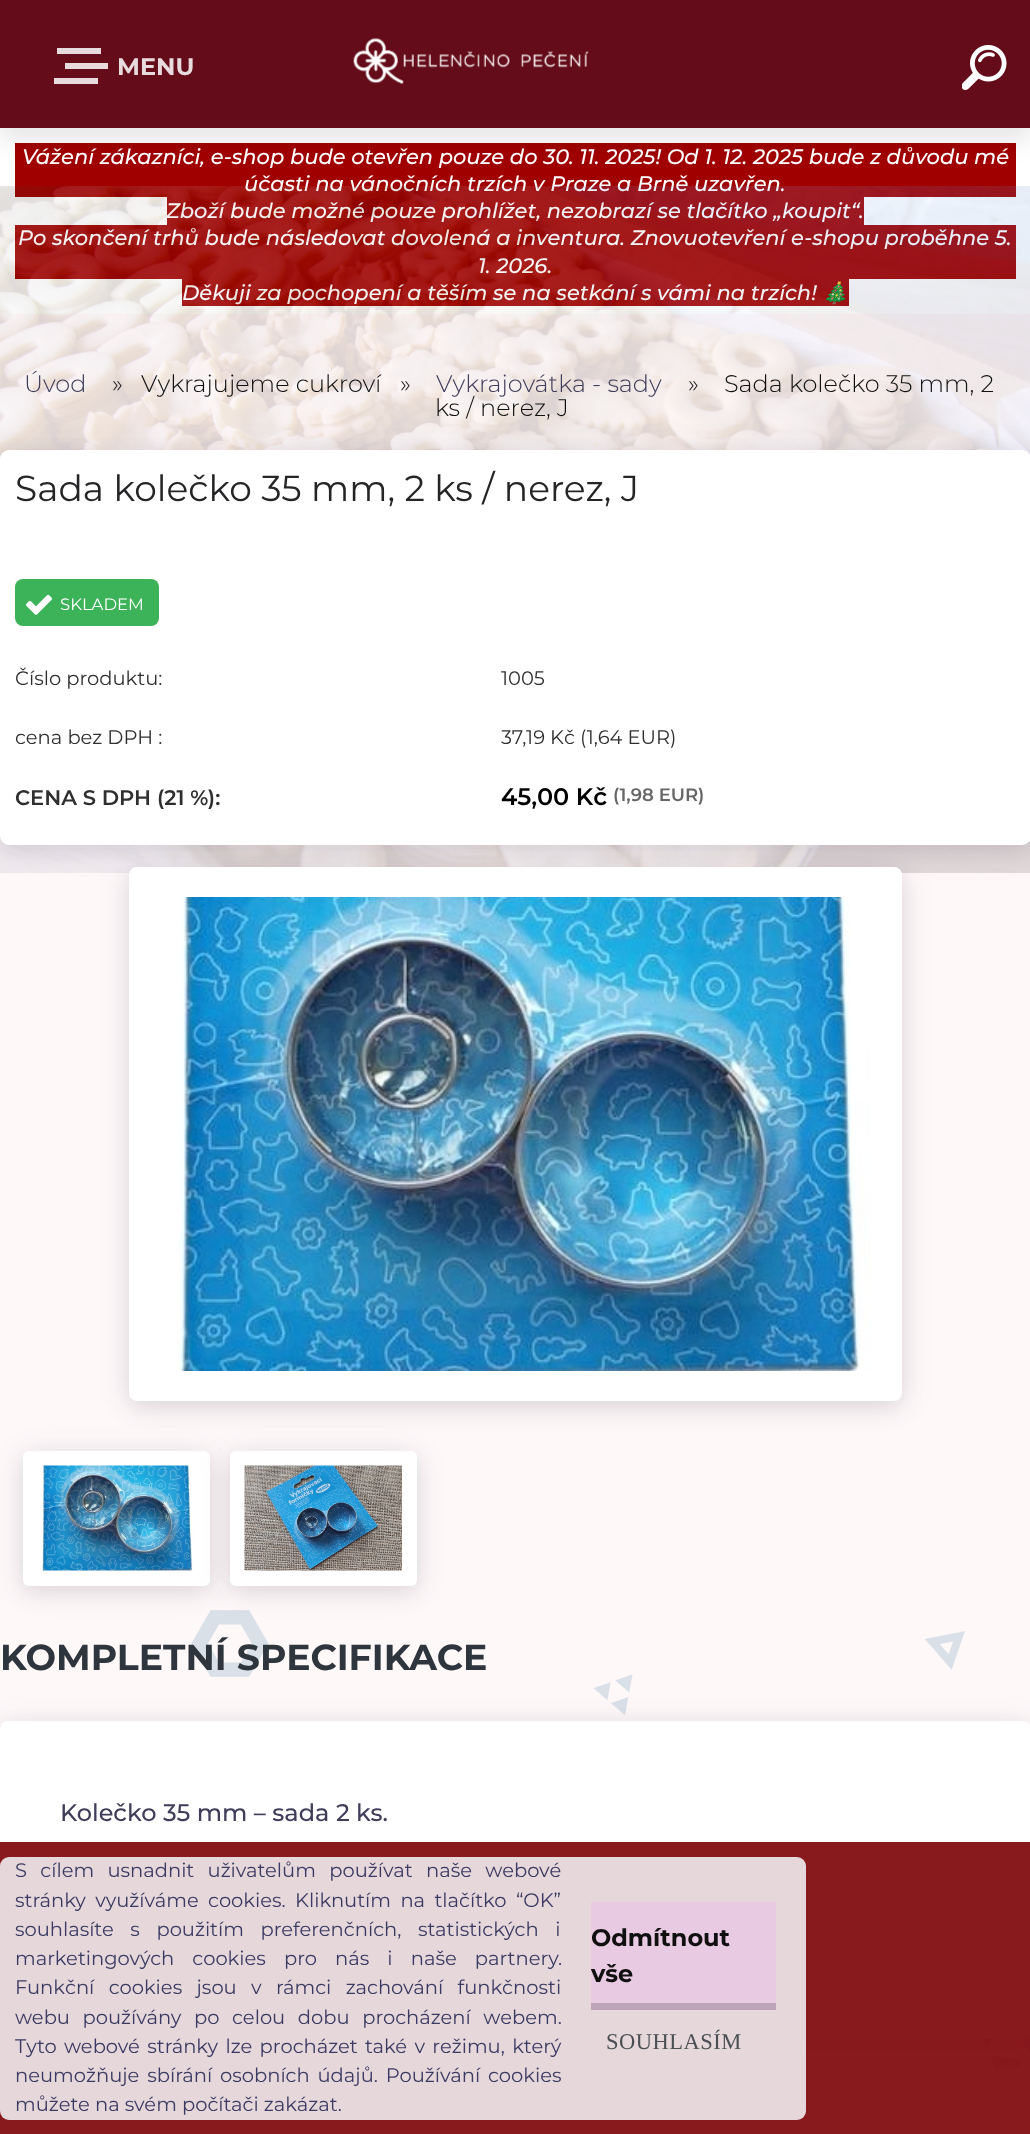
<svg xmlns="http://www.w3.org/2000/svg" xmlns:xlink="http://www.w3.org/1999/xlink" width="1030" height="2134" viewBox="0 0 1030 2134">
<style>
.cls-1{font:bold 24px Montserrat;fill:#e8dbdd}
.cls-2{font:italic 500 21px Montserrat;fill:#ffffff}
.cls-3{font:italic 21px Noto Color Emoji;fill:#ffffff}
.cls-4{font:300 24px Montserrat;fill:#3f3d59}
.cls-5{font:300 24px Montserrat;fill:#101010}
.cls-6{font:36px Montserrat;fill:#252527}
.cls-7{font:16.5px Montserrat;fill:#ffffff}
.cls-8{font:19.5px Montserrat;fill:#2f2f2f}
.cls-9{font:600 21px Montserrat;fill:#2f2f2f}
.cls-10{font:600 24px Montserrat;fill:#000000}
.cls-11{font:600 18px Montserrat;fill:#666666}
.cls-12{font:bold 36.25px Montserrat;fill:#2e353c}
.cls-13{font:500 24px Montserrat;fill:#3f3d59}
.cls-14{font:19.5px Montserrat;fill:#3b3a63}
.cls-15{font:bold 24px Montserrat;fill:#101010}
.cls-16{font:22.5px Liberation Serif;letter-spacing:0.5px;fill:#4b4f54}
</style>
<rect width="100%" height="100%" fill="#ffffff"/>
<rect fill="#a10000" x="15" y="143" width="1001" height="54"/>
<rect fill="#000000" fill-opacity="0.1" filter="blur(12px)" x="0" y="12" width="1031" height="128"/>
<rect fill="#640c19" x="0" y="0" width="1030" height="128"/>
<rect fill="#e8dbdd" x="57" y="48" width="44" height="6"/>
<rect fill="#e8dbdd" x="65" y="63" width="43" height="6"/>
<rect fill="#e8dbdd" x="54" y="78" width="44" height="6"/>
<image xlink:href="image0.png" x="353" y="38" width="236" height="46"/>
<image xlink:href="image1.png" x="962" y="45" width="45" height="45"/>
<rect fill="#a10000" x="167" y="197" width="697" height="28"/>
<rect fill="#a10000" x="15" y="225" width="1001" height="54"/>
<rect fill="#a10000" x="182" y="279" width="667" height="27"/>
<rect fill="#fff8f9" x="0" y="314" width="1030" height="1820"/>
<image xlink:href="image7.png" x="85" y="1610" width="945" height="459"/>
<rect fill="#000000" fill-opacity="0.07" filter="blur(11px)" x="23" y="1458" width="187" height="135" rx="6"/>
<rect fill="#32325d" fill-opacity="0.1" filter="blur(15px)" x="23" y="1454" width="187" height="135" rx="6"/>
<rect fill="#ffffff" x="23" y="1451" width="187" height="135" rx="6"/>
<image xlink:href="image5.png" x="42" y="1465" width="153" height="106"/>
<rect fill="#000000" fill-opacity="0.07" filter="blur(11px)" x="230" y="1458" width="187" height="135" rx="6"/>
<rect fill="#32325d" fill-opacity="0.1" filter="blur(15px)" x="230" y="1454" width="187" height="135" rx="6"/>
<rect fill="#ffffff" x="230" y="1451" width="187" height="135" rx="6"/>
<image xlink:href="image6.png" x="244" y="1465" width="158" height="106"/>
<rect fill="#000000" fill-opacity="0.07" filter="blur(11px)" x="0" y="1728" width="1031" height="318" rx="8"/>
<rect fill="#32325d" fill-opacity="0.1" filter="blur(15px)" x="0" y="1724" width="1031" height="318" rx="8"/>
<rect fill="#ffffff" x="0" y="1721" width="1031" height="318" rx="8"/>
<rect fill="#820d11" fill-opacity="0.95" x="0" y="1842" width="1030" height="292"/>
<rect fill="#f6f9fc" fill-opacity="0.85" x="0" y="1857" width="806" height="263" rx="9"/>
<rect fill="#e9cae3" x="591" y="1902" width="185" height="101"/>
<rect fill="#bda4b8" x="591" y="2003" width="185" height="7"/>
<text class="cls-1" x="117" y="75">MENU</text>
<text class="cls-2" x="22" y="164">Vážení zákazníci, e-shop bude otevřen pouze do 30. 11. 2025! Od 1. 12. 2025 bude z důvodu mé</text>
<text class="cls-2" x="244" y="191">účasti na vánočních trzích v Praze a Brně uzavřen.</text>
<text class="cls-2" x="166" y="218">Zboží bude možné pouze prohlížet, nezobrazí se tlačítko „koupit“.</text>
<text class="cls-2" x="18" y="245">Po skončení trhů bude následovat dovolená a inventura. Znovuotevření e-shopu proběhne 5.</text>
<text class="cls-2" x="478" y="273">1. 2026.</text>
<text class="cls-2" x="182" y="300">Děkuji za pochopení a těším se na setkání s vámi na trzích!</text>
<text class="cls-3" x="822" y="300">🎄</text>
<image xlink:href="image2.png" x="0" y="186" width="1030" height="687"/>
<text class="cls-4" x="24" y="392">Úvod</text>
<text class="cls-5" x="112" y="392">»</text>
<text class="cls-5" x="141" y="392">Vykrajujeme cukroví</text>
<text class="cls-5" x="400" y="392">»</text>
<text class="cls-4" x="436" y="392">Vykrajovátka - sady</text>
<text class="cls-5" x="688" y="392">»</text>
<text class="cls-5" x="724" y="392">Sada kolečko 35 mm, 2</text>
<text class="cls-5" x="435" y="416">ks / nerez, J</text>
<rect fill="#000000" fill-opacity="0.07" filter="blur(11px)" x="0" y="458" width="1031" height="394" rx="9"/>
<rect fill="#32325d" fill-opacity="0.1" filter="blur(15px)" x="0" y="453" width="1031" height="395" rx="9"/>
<rect fill="#ffffff" x="0" y="450" width="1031" height="395" rx="9"/>
<text class="cls-6" x="15" y="501">Sada kolečko 35 mm, 2 ks / nerez, J</text>
<rect fill="#3cb359" x="15" y="579" width="144" height="47" rx="8"/>
<image xlink:href="image3.png" x="26" y="594" width="26" height="21"/>
<text class="cls-7" x="60" y="610">SKLADEM</text>
<text class="cls-8" x="15" y="685">Číslo produktu:</text>
<text class="cls-8" x="501" y="685">1005</text>
<text class="cls-8" x="15" y="744">cena bez DPH :</text>
<text class="cls-8" x="501" y="744">37,19 Kč (1,64 EUR)</text>
<text class="cls-9" x="15" y="805">CENA S DPH (21 %):</text>
<text class="cls-10" x="501" y="805">45,00 Kč</text>
<text class="cls-11" x="613" y="801">(1,98 EUR)</text>
<rect fill="#32325d" fill-opacity="0.1" filter="blur(15px)" x="129" y="870" width="773" height="534" rx="8"/>
<rect fill="#000000" fill-opacity="0.07" filter="blur(11px)" x="129" y="875" width="773" height="534" rx="8"/>
<rect fill="#ffffff" x="129" y="867" width="773" height="534" rx="8"/>
<image xlink:href="image4.png" x="177" y="897" width="694" height="474"/>
<text class="cls-12" x="0" y="1670">KOMPLETNÍ SPECIFIKACE</text>
<text class="cls-13" x="60" y="1821">Kolečko 35 mm – sada 2 ks.</text>
<text class="cls-14"><tspan x="15" y="1877" word-spacing="8.25">S cílem usnadnit uživatelům používat naše webové</tspan><tspan x="15" y="1907" word-spacing="4.25">stránky využíváme cookies. Kliknutím na tlačítko “OK”</tspan><tspan x="15" y="1936" word-spacing="11.5">souhlasíte s použitím preferenčních, statistických i</tspan><tspan x="15" y="1965" word-spacing="13">marketingových cookies pro nás i naše partnery.</tspan><tspan x="15" y="1994" word-spacing="9.25">Funkční cookies jsou v rámci zachování funkčnosti</tspan><tspan x="15" y="2024" word-spacing="7.5">webu používány po celou dobu procházení webem.</tspan><tspan x="15" y="2053" word-spacing="2.25">Tyto webové stránky lze procházet také v režimu, který</tspan><tspan x="15" y="2082" word-spacing="2.75">neumožňuje sbírání osobních údajů. Používání cookies</tspan><tspan x="15" y="2111">můžete na svém počítači zakázat.</tspan></text>
<text class="cls-15"><tspan x="591" y="1946">Odmítnout</tspan><tspan x="591" y="1982">vše</tspan></text>
<text class="cls-16" x="606" y="2049">SOUHLASÍM</text>
</svg>
